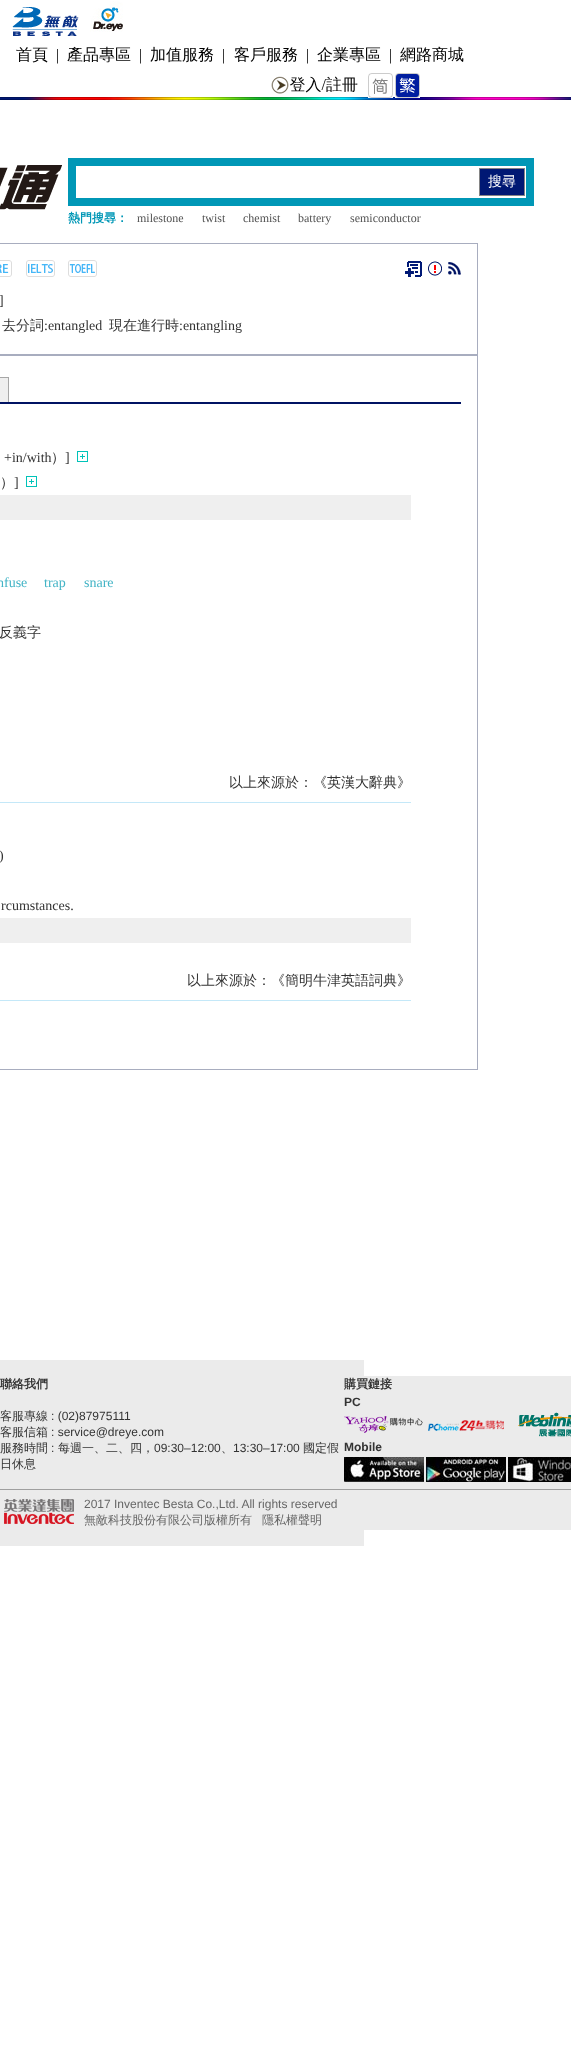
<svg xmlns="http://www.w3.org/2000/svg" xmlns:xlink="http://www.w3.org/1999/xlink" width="571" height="2070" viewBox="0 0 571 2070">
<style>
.cls-1{font:500 16px WenQuanYi Zen Hei;fill:#000000}
.cls-2{font:16px Liberation Serif;fill:#000000}
.cls-3{font:500 14px WenQuanYi Zen Hei;fill:#ffffff}
.cls-4{font:bold 12px WenQuanYi Zen Hei;fill:#0097b6}
.cls-5{font:12px Liberation Serif;fill:#515151}
.cls-6{font:14px Liberation Serif;fill:#333333}
.cls-7{font:500 14px WenQuanYi Zen Hei;fill:#333333}
.cls-8{font:14px Liberation Serif;fill:#43b4c6}
.cls-9{font:bold 12px WenQuanYi Zen Hei;fill:#333333}
.cls-10{font:500 12px WenQuanYi Zen Hei;fill:#333333}
.cls-11{font:12px Liberation Sans;fill:#333333}
.cls-12{font:bold 12px Liberation Sans;fill:#333333}
.cls-13{font:12px Liberation Sans;fill:#666666}
.cls-14{font:500 12px WenQuanYi Zen Hei;fill:#666666}
</style>
<rect width="100%" height="100%" fill="#ffffff"/>
<image xlink:href="image0.png" x="12" y="7" width="67" height="29"/>
<image xlink:href="image1.png" x="90" y="1" width="33" height="31"/>
<image xlink:href="image3.png" x="0" y="97" width="571" height="3"/>
<image xlink:href="image2.png" x="271" y="73" width="149" height="25"/>
<image xlink:href="image4.png" x="0" y="165" width="62" height="45"/>
<rect fill="none" stroke="#0097b6" stroke-width="8" x="72" y="162" width="458" height="40"/>
<rect fill="#001874" stroke="#858585" x="479.5" y="168.5" width="45" height="27"/>
<rect fill="none" stroke="#a8adbf" x="-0.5" y="243.5" width="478" height="111"/>
<image xlink:href="image5.png" x="0" y="260" width="12" height="17"/>
<image xlink:href="image6.png" x="26" y="260" width="29" height="17"/>
<image xlink:href="image7.png" x="68" y="260" width="29" height="17"/>
<image xlink:href="image8.png" x="405" y="261" width="17" height="16"/>
<image xlink:href="image9.png" x="428" y="261" width="14" height="15"/>
<image xlink:href="image10.png" x="448" y="262" width="13" height="13"/>
<rect fill="none" stroke="#a8adbf" x="-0.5" y="355.5" width="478" height="714"/>
<rect fill="#001363" x="0" y="402" width="461" height="2"/>
<rect fill="#efefef" x="0" y="378" width="8" height="24"/>
<rect fill="#a7a7a7" x="0" y="377" width="9" height="1"/>
<rect fill="#a7a7a7" x="8" y="377" width="1" height="25"/>
<image xlink:href="image11.png" x="77" y="451" width="11" height="11"/>
<image xlink:href="image11.png" x="26" y="476" width="11" height="11"/>
<rect fill="#efefef" x="0" y="495" width="411" height="25"/>
<rect fill="#c4e8f8" x="0" y="802" width="411" height="1"/>
<rect fill="#efefef" x="0" y="918" width="411" height="25"/>
<rect fill="#c4e8f8" x="0" y="1000" width="411" height="1"/>
<rect fill="#ebebeb" x="0" y="1360" width="364" height="186"/>
<rect fill="#ebebeb" x="364" y="1376" width="207" height="154"/>
<image xlink:href="image12.png" x="344" y="1416" width="79" height="17"/>
<image xlink:href="image13.png" x="428" y="1420" width="76" height="11"/>
<image xlink:href="image14.png" x="518" y="1412" width="53" height="25"/>
<image xlink:href="image15.png" x="344" y="1457" width="80" height="25"/>
<image xlink:href="image16.png" x="426" y="1457" width="80" height="25"/>
<image xlink:href="image17.png" x="508" y="1457" width="63" height="25"/>
<rect fill="#9f9f9f" x="0" y="1489" width="571" height="1"/>
<image xlink:href="image18.png" x="4" y="1499" width="70" height="25"/>
<text class="cls-1" x="16" y="60">首頁</text>
<text class="cls-2" x="56" y="60">|</text>
<text class="cls-1" x="67" y="60">產品專區</text>
<text class="cls-2" x="139" y="60">|</text>
<text class="cls-1" x="150" y="60">加值服務</text>
<text class="cls-2" x="222" y="60">|</text>
<text class="cls-1" x="234" y="60">客戶服務</text>
<text class="cls-2" x="306" y="60">|</text>
<text class="cls-1" x="317" y="60">企業專區</text>
<text class="cls-2" x="389" y="60">|</text>
<text class="cls-1" x="400" y="60">網路商城</text>
<text class="cls-3" x="488" y="186">搜尋</text>
<text class="cls-4" x="68" y="222">熱門搜尋：</text>
<text class="cls-5" x="137" y="222">milestone</text>
<text class="cls-5" x="202" y="222">twist</text>
<text class="cls-5" x="243" y="222">chemist</text>
<text class="cls-5" x="298" y="222">battery</text>
<text class="cls-5" x="350" y="222">semiconductor</text>
<text class="cls-6" x="-1" y="305">]</text>
<text class="cls-7" x="2" y="330">去分詞</text>
<text class="cls-6" x="44" y="330">:entangled</text>
<text class="cls-7" x="109" y="330">現在進行時</text>
<text class="cls-6" x="179" y="330">:entangling</text>
<text class="cls-6" x="4" y="462">+in/with</text>
<text class="cls-7" x="51" y="462">）</text>
<text class="cls-6" x="65" y="462">]</text>
<text class="cls-7" x="0" y="487">）</text>
<text class="cls-6" x="14" y="487">]</text>
<text class="cls-8" x="-3" y="587">nfuse</text>
<text class="cls-8" x="44" y="587">trap</text>
<text class="cls-8" x="84" y="587">snare</text>
<text class="cls-7" x="-1" y="637">反義字</text>
<text class="cls-7" x="229" y="787">以上來源於：《英漢大辭典》</text>
<text class="cls-6" x="-1" y="860">)</text>
<text class="cls-6" x="1" y="910">rcumstances.</text>
<text class="cls-7" x="187" y="985">以上來源於：《簡明牛津英語詞典》</text>
<text class="cls-9" x="0" y="1388">聯絡我們</text>
<text class="cls-10" x="0" y="1420">客服專線</text>
<text class="cls-11" x="51" y="1420">: (02)87975111</text>
<text class="cls-10" x="0" y="1436">客服信箱</text>
<text class="cls-11" x="51" y="1436">: service@dreye.com</text>
<text class="cls-10" x="0" y="1452">服務時間</text>
<text class="cls-11" x="51" y="1452">:</text>
<text class="cls-10" x="58" y="1452">每週一、二、四，</text>
<text class="cls-11" x="154" y="1452">09:30–12:00</text>
<text class="cls-11" x="233" y="1452">13:30–17:00</text>
<text class="cls-10" x="303" y="1452">國定假</text>
<text class="cls-10" x="221" y="1452">、</text>
<text class="cls-10" x="0" y="1468">日休息</text>
<text class="cls-9" x="344" y="1388">購買鏈接</text>
<text class="cls-12" x="344" y="1406">PC</text>
<text class="cls-12" x="344" y="1451">Mobile</text>
<text class="cls-13" x="84" y="1508">2017 Inventec Besta Co.,Ltd. All rights reserved</text>
<text class="cls-14" x="84" y="1524">無敵科技股份有限公司版權所有</text>
<text class="cls-14" x="262" y="1524">隱私權聲明</text>
</svg>
